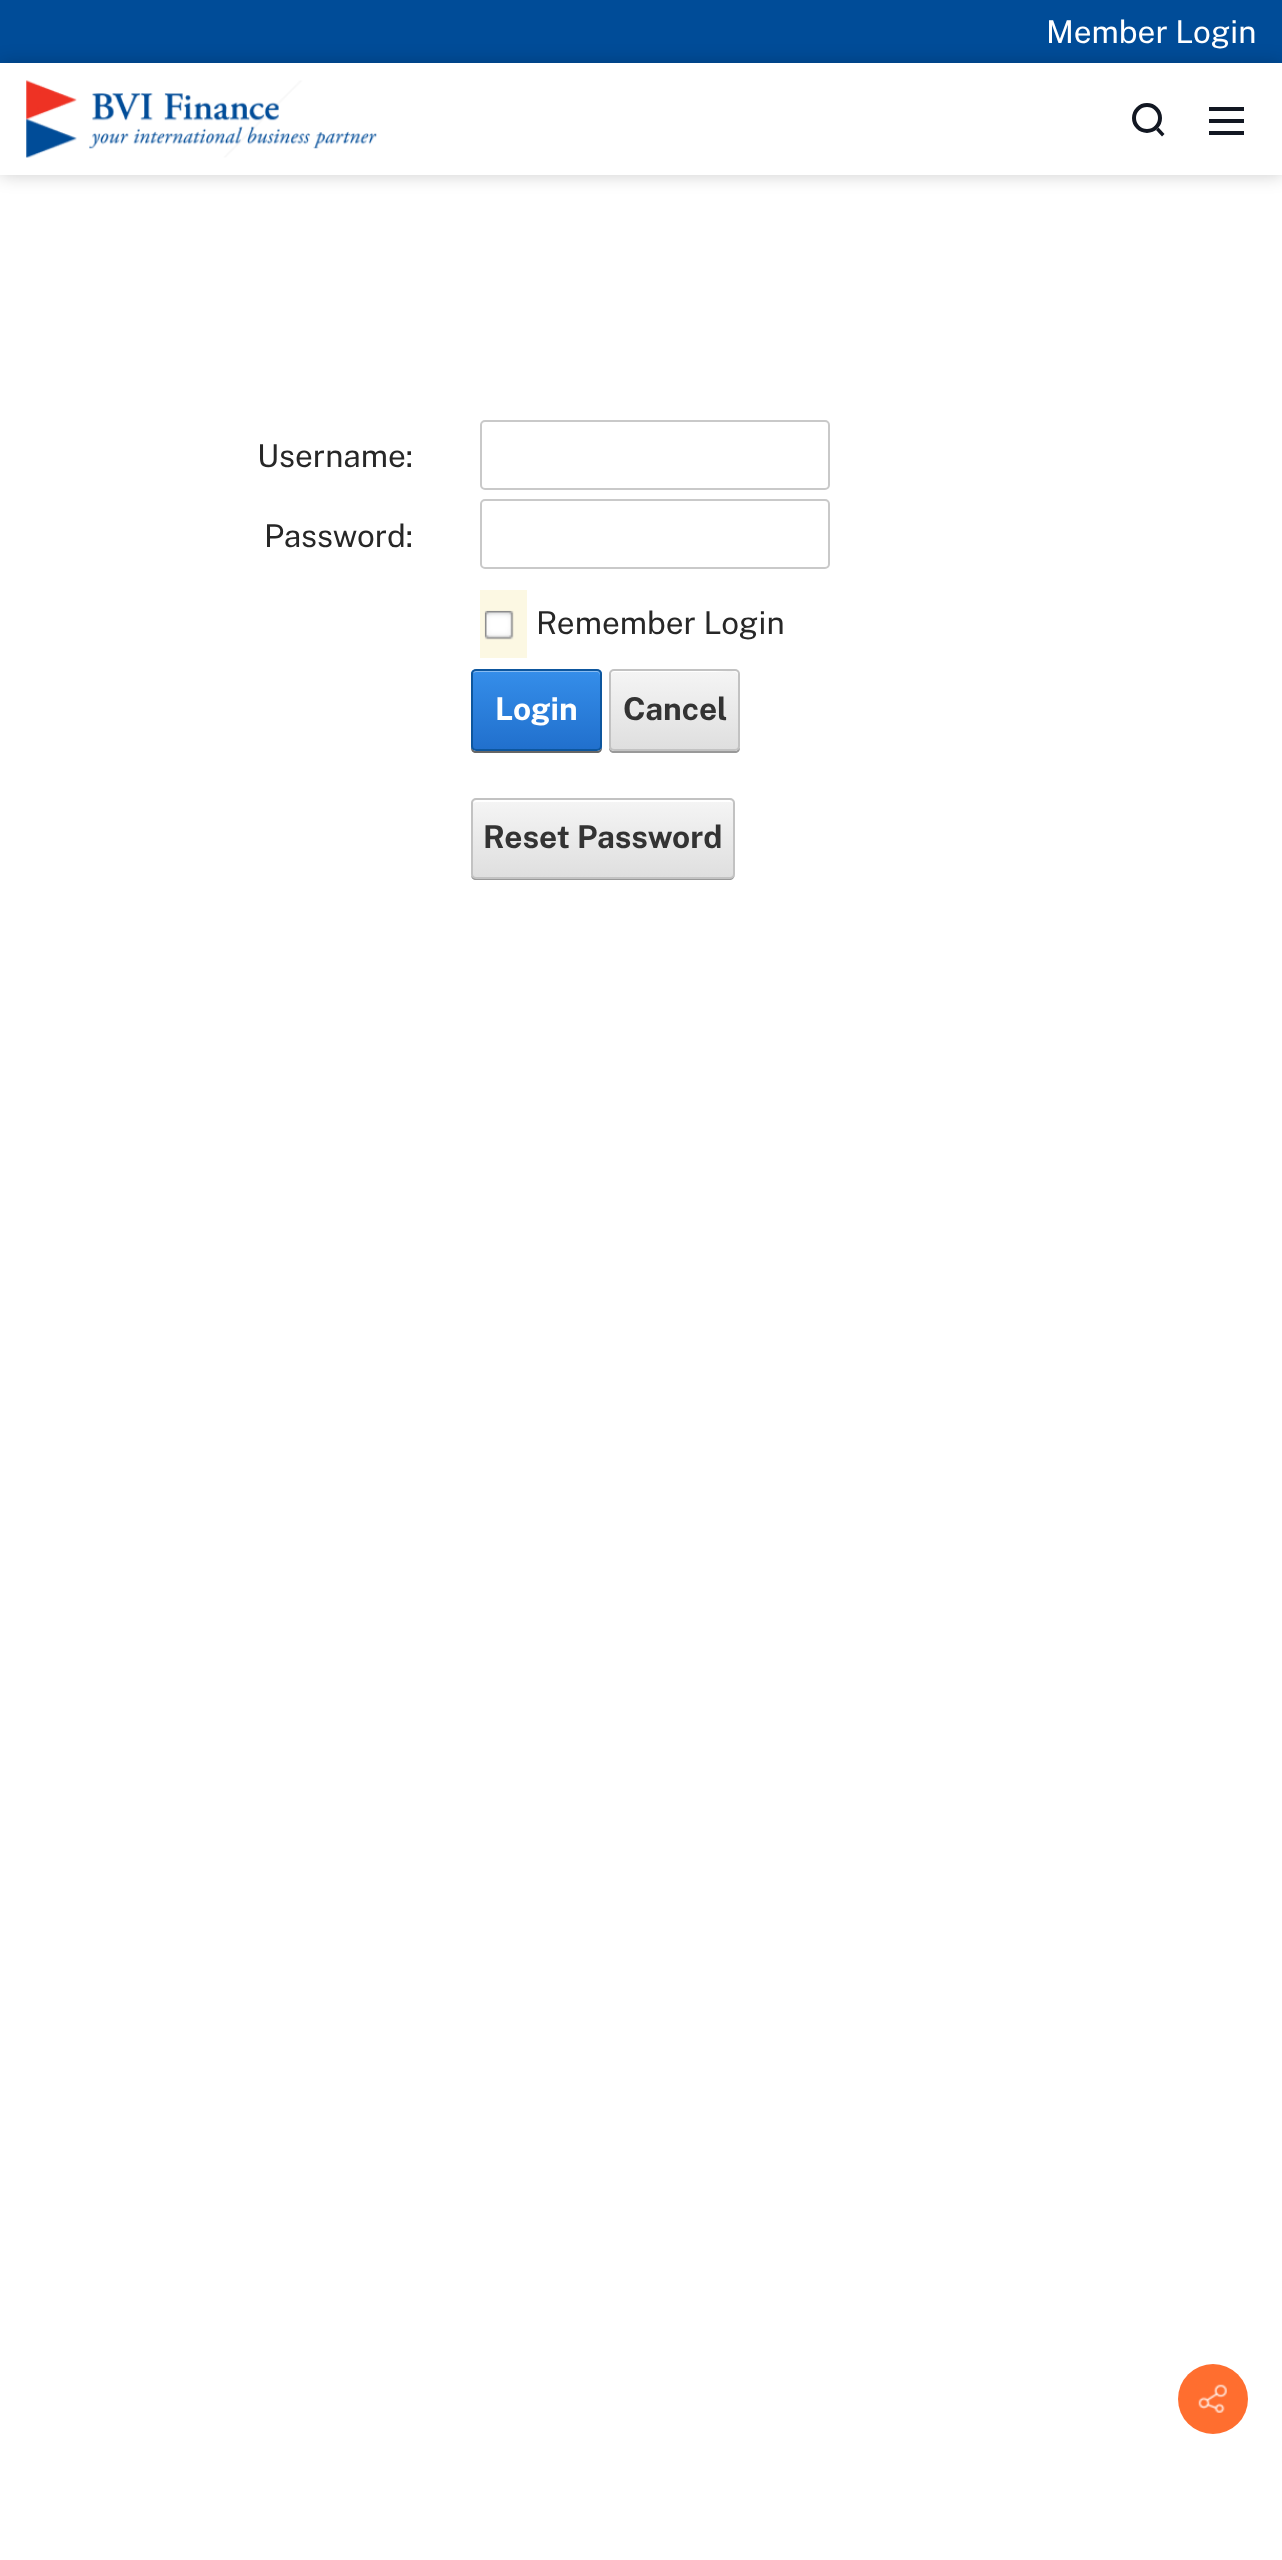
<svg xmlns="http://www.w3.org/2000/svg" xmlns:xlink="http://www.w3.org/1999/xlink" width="1282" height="2560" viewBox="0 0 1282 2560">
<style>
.cls-1{font:31.5px Public Sans;fill:#ffffff}
.cls-2{font:31.5px Public Sans;fill:#272727}
.cls-3{font:bold 31.5px Public Sans;fill:#ffffff}
.cls-4{font:bold 31.5px Public Sans;fill:#333333}
</style>
<defs>
<clipPath id="clip1"><path d="M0 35H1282V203H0ZM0 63H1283V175H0Z" clip-rule="evenodd"/></clipPath>
<clipPath id="clip2"><rect x="471" y="669" width="131" height="82" rx="5"/></clipPath>
<linearGradient id="g1" gradientUnits="userSpaceOnUse" x1="536" y1="670" x2="536" y2="749"><stop offset="0" stop-color="#358eea"/><stop offset="1" stop-color="#2170cd"/></linearGradient>
<clipPath id="clip3"><rect x="609" y="669" width="131" height="82" rx="5"/></clipPath>
<linearGradient id="g2" gradientUnits="userSpaceOnUse" x1="675" y1="670" x2="675" y2="749"><stop offset="0" stop-color="#f5f5f5"/><stop offset="1" stop-color="#dfdfdf"/></linearGradient>
<clipPath id="clip4"><rect x="471" y="798" width="264" height="81" rx="5"/></clipPath>
<linearGradient id="g3" gradientUnits="userSpaceOnUse" x1="603" y1="800" x2="603" y2="877"><stop offset="0" stop-color="#f5f5f5"/><stop offset="1" stop-color="#dfdfdf"/></linearGradient>
</defs>
<rect width="100%" height="100%" fill="#ffffff"/>
<rect fill="#004c98" x="0" y="0" width="1282" height="63"/>
<g clip-path="url(#clip1)">
<rect fill="#000000" fill-opacity="0.2" filter="blur(9px)" x="0" y="63" width="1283" height="112"/>
</g>
<image xlink:href="image0.png" x="26" y="80" width="351" height="78"/>
<circle fill="none" stroke="#121722" stroke-width="4" cx="1147" cy="118" r="13"/>
<path fill="#121722" d="M1158.5 127.5L1164.5 134L1162 136.5L1156 130Z"/>
<rect fill="#121722" x="1209" y="107" width="35" height="4"/>
<rect fill="#121722" x="1209" y="119" width="35" height="4"/>
<rect fill="#121722" x="1209" y="131" width="35" height="4"/>
<rect fill="none" stroke="#c9c9c9" stroke-width="2" x="481" y="421" width="348" height="68" rx="4"/>
<rect fill="none" stroke="#c9c9c9" stroke-width="2" x="481" y="500" width="348" height="68" rx="4"/>
<rect fill="#fcf8e3" x="480" y="590" width="47" height="68"/>
<image xlink:href="image1.png" x="484" y="610" width="30" height="30"/>
<path fill="#666666" d="M471 747V748C471 751 473 753 476 753H597C600 753 602 751 602 748V746C602 748 600 751 597 751H476C474 751 472 749 471 747Z"/>
<g clip-path="url(#clip2)">
<rect fill="url(#g1)" x="471" y="670" width="131" height="79"/>
</g>
<path fill="#86bbf2" d="M476 672H597C599 672 600 674 600 676V674C600 672 598 670 596 670H477C475 670 473 672 473 673Z"/>
<rect fill="none" stroke="#0d569e" stroke-width="2" x="472" y="670" width="129" height="80" rx="4"/>
<path fill="#999999" d="M609 746V748C609 751 611 753 614 753H735C738 753 740 751 740 748V747C739 749 737 751 735 751H614C611 751 609 748 609 746Z"/>
<g clip-path="url(#clip3)">
<rect fill="url(#g2)" x="609" y="670" width="131" height="79"/>
</g>
<path fill="#ffffff" d="M614 672H715C723 672 738 668 738 676V748C739 747 739 746 739 745V674C739 672 737 670 735 670H615C613 670 611 672 611 674V676C611 674 612 672 614 672Z"/>
<rect fill="none" stroke="#c2c2c2" stroke-width="2" x="610" y="670" width="129" height="80" rx="4"/>
<path fill="#999999" d="M471 875C471 878 473 880 476 880H731C734 879 735 876 735 873C735 876 733 878 730 878H476C474 878 472 877 471 875Z"/>
<g clip-path="url(#clip4)">
<rect fill="url(#g3)" x="471" y="800" width="264" height="77"/>
</g>
<path fill="#ffffff" d="M476 802H731L733 803V805V804C733 802 731 800 729 800H477C475 800 474 801 473 803Z"/>
<rect fill="none" stroke="#c2c2c2" stroke-width="2" x="472" y="799" width="262" height="79" rx="4"/>
<circle fill="#ff6e2f" cx="1213" cy="2399" r="35"/>
<image xlink:href="image2.png" x="1198" y="2384" width="29" height="29"/>
<text class="cls-1" x="1046" y="43">Member Login</text>
<text class="cls-2" x="257" y="467">Username:</text>
<text class="cls-2" x="264" y="547">Password:</text>
<text class="cls-2" x="536" y="634">Remember Login</text>
<text class="cls-3" x="495" y="720">Login</text>
<text class="cls-4" x="623" y="720">Cancel</text>
<text class="cls-4" x="483" y="848">Reset Password</text>
</svg>
